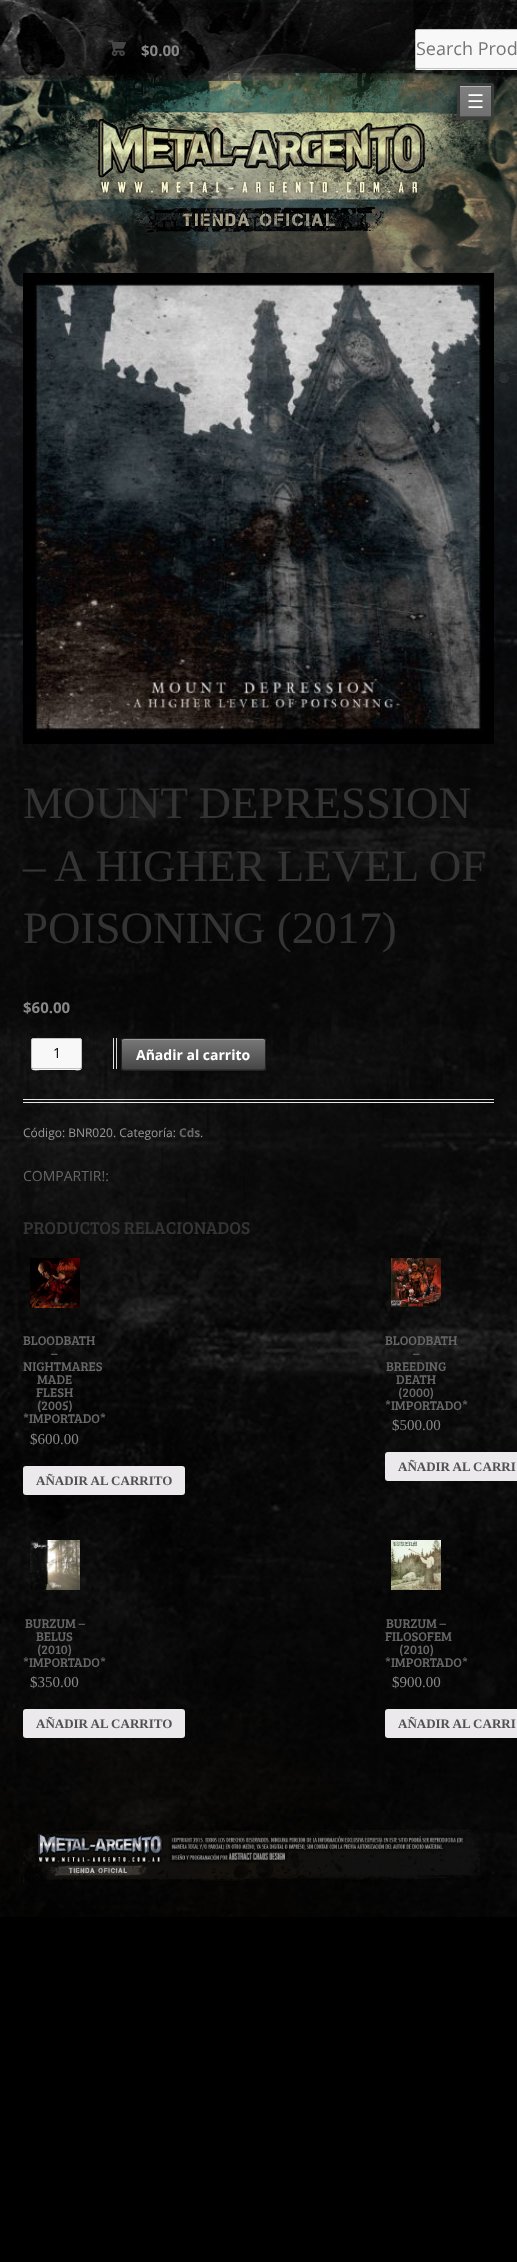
<svg xmlns="http://www.w3.org/2000/svg" xmlns:xlink="http://www.w3.org/1999/xlink" width="517" height="2262" viewBox="0 0 517 2262">
<style>
.cls-1{font:18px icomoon;fill:#454545}
.cls-2{font:bold 15px Open Sans;fill:#888888}
.cls-3{font:18px Open Sans;fill:#757575}
.cls-4{font:19px DejaVu Sans;fill:#ffffff}
.cls-5{font:45px Liberation Serif;fill:#343434}
.cls-6{font:14px Open Sans;fill:#000000}
.cls-7{font:bold 14px Open Sans;fill:#ffffff}
.cls-8{font:12px Open Sans;fill:#9a9a9a}
.cls-9{font:bold 12px Open Sans;fill:#676767}
.cls-10{font:14px Open Sans;fill:#676767}
.cls-11{font:17.75px Bree Serif;fill:#343434}
.cls-12{font:13px Bree Serif;fill:#676767}
.cls-13{font:15px Liberation Serif;fill:#888888}
.cls-14{font:bold 13px Liberation Serif;fill:#515151}
</style>
<defs>
<linearGradient id="g1" gradientUnits="userSpaceOnUse" x1="476" y1="86" x2="476" y2="117"><stop offset="0" stop-color="#808080"/><stop offset="1" stop-color="#6f6f6f"/></linearGradient>
<clipPath id="clip1"><rect x="121" y="1038" width="145" height="33" rx="3"/></clipPath>
<linearGradient id="g2" gradientUnits="userSpaceOnUse" x1="194" y1="1039" x2="194" y2="1070"><stop offset="0" stop-color="#787878"/><stop offset="1" stop-color="#454545"/></linearGradient>
</defs>
<rect width="100%" height="100%" fill="#000000"/>
<image xlink:href="image0.png" x="0" y="0" width="517" height="1917"/>
<path fill="#ffffff" d="M415 67C415 68 415 70 417 70H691L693 69V67C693 68 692 69 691 69H417C416 69 415 68 415 67Z"/>
<image xlink:href="image1.png" x="23" y="73" width="471" height="177"/>
<rect fill="none" stroke="#000000" stroke-opacity="0.03" stroke-width="6" x="412" y="26" width="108" height="46"/>
<rect fill="#f8f8f8" stroke="#c2c2c2" x="415.5" y="29.5" width="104" height="39" rx="1.5"/>
<rect fill="url(#g1)" x="460" y="87" width="31" height="29"/>
<rect fill="#4d4d4d" x="460" y="116" width="31" height="1"/>
<rect fill="#b3b3b3" x="460" y="86" width="31" height="1"/>
<rect fill="none" stroke="#3c3c3c" stroke-width="3" x="458.5" y="84.5" width="34" height="34" rx="1.5"/>
<image xlink:href="image2.png" x="23" y="273" width="471" height="471"/>
<rect fill="#e6e6e6" x="113" y="1038" width="1" height="31"/>
<rect fill="#e6e6e6" x="116" y="1038" width="1" height="31"/>
<path fill="#ffffff" d="M31 1067C31 1072 38 1070 41 1070H72C75 1070 82 1072 82 1067L81 1069H32Z"/>
<rect fill="none" stroke="#000000" stroke-opacity="0.03" stroke-width="5" x="28.5" y="1035.5" width="56" height="36"/>
<rect fill="#f8f8f8" stroke="#c2c2c2" x="31.5" y="1038.5" width="50" height="30" rx="1.5"/>
<rect fill="none" stroke="#000000" stroke-opacity="0.07" stroke-width="5" x="118.5" y="1035.5" width="150" height="38" rx="5.5"/>
<g clip-path="url(#clip1)">
<rect fill="url(#g2)" x="121" y="1039" width="145" height="31"/>
</g>
<path fill="#343434" d="M122 1067V1069L124 1070H264C265 1069 265 1068 265 1067C265 1068 264 1069 263 1069H124C123 1069 122 1068 122 1067Z"/>
<path fill="#9a9a9a" d="M124 1040H263C264 1040 265 1041 265 1042C265 1041 265 1040 264 1039H124L122 1040V1042C122 1041 123 1040 124 1040Z"/>
<rect fill="none" stroke="#232323" x="121.5" y="1038.5" width="144" height="32" rx="2.5"/>
<rect fill="#e6e6e6" x="23" y="1099" width="471" height="1"/>
<rect fill="#e6e6e6" x="23" y="1102" width="471" height="1"/>
<image xlink:href="image3.png" x="30" y="1258" width="50" height="50"/>
<rect fill="#ebe9eb" x="23" y="1466" width="162" height="29" rx="3"/>
<image xlink:href="image4.png" x="391" y="1258" width="50" height="49"/>
<rect fill="#ebe9eb" x="385" y="1452" width="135" height="29" rx="3"/>
<image xlink:href="image5.png" x="30" y="1540" width="50" height="50"/>
<rect fill="#ebe9eb" x="23" y="1709" width="162" height="29" rx="3"/>
<image xlink:href="image6.png" x="391" y="1540" width="50" height="50"/>
<rect fill="#ebe9eb" x="385" y="1709" width="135" height="29" rx="3"/>
<image xlink:href="image7.png" x="23" y="1829" width="471" height="54"/>
<text class="cls-1" x="108" y="56">£</text>
<text class="cls-2" x="141" y="56">$0.00</text>
<text class="cls-3" x="416" y="55">Search Prod</text>
<text class="cls-4" x="467" y="108">☰</text>
<text class="cls-5"><tspan x="23" y="818">MOUNT DEPRESSION</tspan><tspan x="23" y="881">– A HIGHER LEVEL OF</tspan><tspan x="23" y="943">POISONING (2017)</tspan></text>
<text class="cls-2" x="23" y="1013">$60.00</text>
<text class="cls-6" x="53" y="1058">1</text>
<text class="cls-7" x="136" y="1060">Añadir al carrito</text>
<text class="cls-8" x="23" y="1137">Código: BNR020. Categoría:</text>
<text class="cls-9" x="179" y="1137">Cds</text>
<text class="cls-8" x="200" y="1137">.</text>
<text class="cls-10" x="23" y="1181">COMPARTIR!:</text>
<text class="cls-11" x="23" y="1234">PRODUCTOS RELACIONADOS</text>
<text class="cls-12" x="23" y="1345">BLOODBATH</text>
<text class="cls-12" x="51" y="1358">–</text>
<text class="cls-12" x="23" y="1371">NIGHTMARES</text>
<text class="cls-12" x="37" y="1384">MADE</text>
<text class="cls-12" x="36" y="1397">FLESH</text>
<text class="cls-12" x="37" y="1410">(2005)</text>
<text class="cls-12" x="23" y="1423">*IMPORTADO*</text>
<text class="cls-13" x="30" y="1444">$600.00</text>
<text class="cls-14" x="36" y="1485">AÑADIR AL CARRITO</text>
<text class="cls-12" x="385" y="1345">BLOODBATH</text>
<text class="cls-12" x="413" y="1358">–</text>
<text class="cls-12" x="386" y="1371">BREEDING</text>
<text class="cls-12" x="396" y="1384">DEATH</text>
<text class="cls-12" x="398" y="1397">(2000)</text>
<text class="cls-12" x="385" y="1410">*IMPORTADO*</text>
<text class="cls-13" x="392" y="1430">$500.00</text>
<text class="cls-14" x="398" y="1471">AÑADIR AL CARRI</text>
<text class="cls-12" x="25" y="1628">BURZUM –</text>
<text class="cls-12" x="36" y="1641">BELUS</text>
<text class="cls-12" x="37" y="1654">(2010)</text>
<text class="cls-12" x="23" y="1667">*IMPORTADO*</text>
<text class="cls-13" x="30" y="1687">$350.00</text>
<text class="cls-14" x="36" y="1728">AÑADIR AL CARRITO</text>
<text class="cls-12" x="386" y="1628">BURZUM –</text>
<text class="cls-12" x="385" y="1641">FILOSOFEM</text>
<text class="cls-12" x="399" y="1654">(2010)</text>
<text class="cls-12" x="385" y="1667">*IMPORTADO*</text>
<text class="cls-13" x="392" y="1687">$900.00</text>
<text class="cls-14" x="398" y="1728">AÑADIR AL CARRI</text>
</svg>
